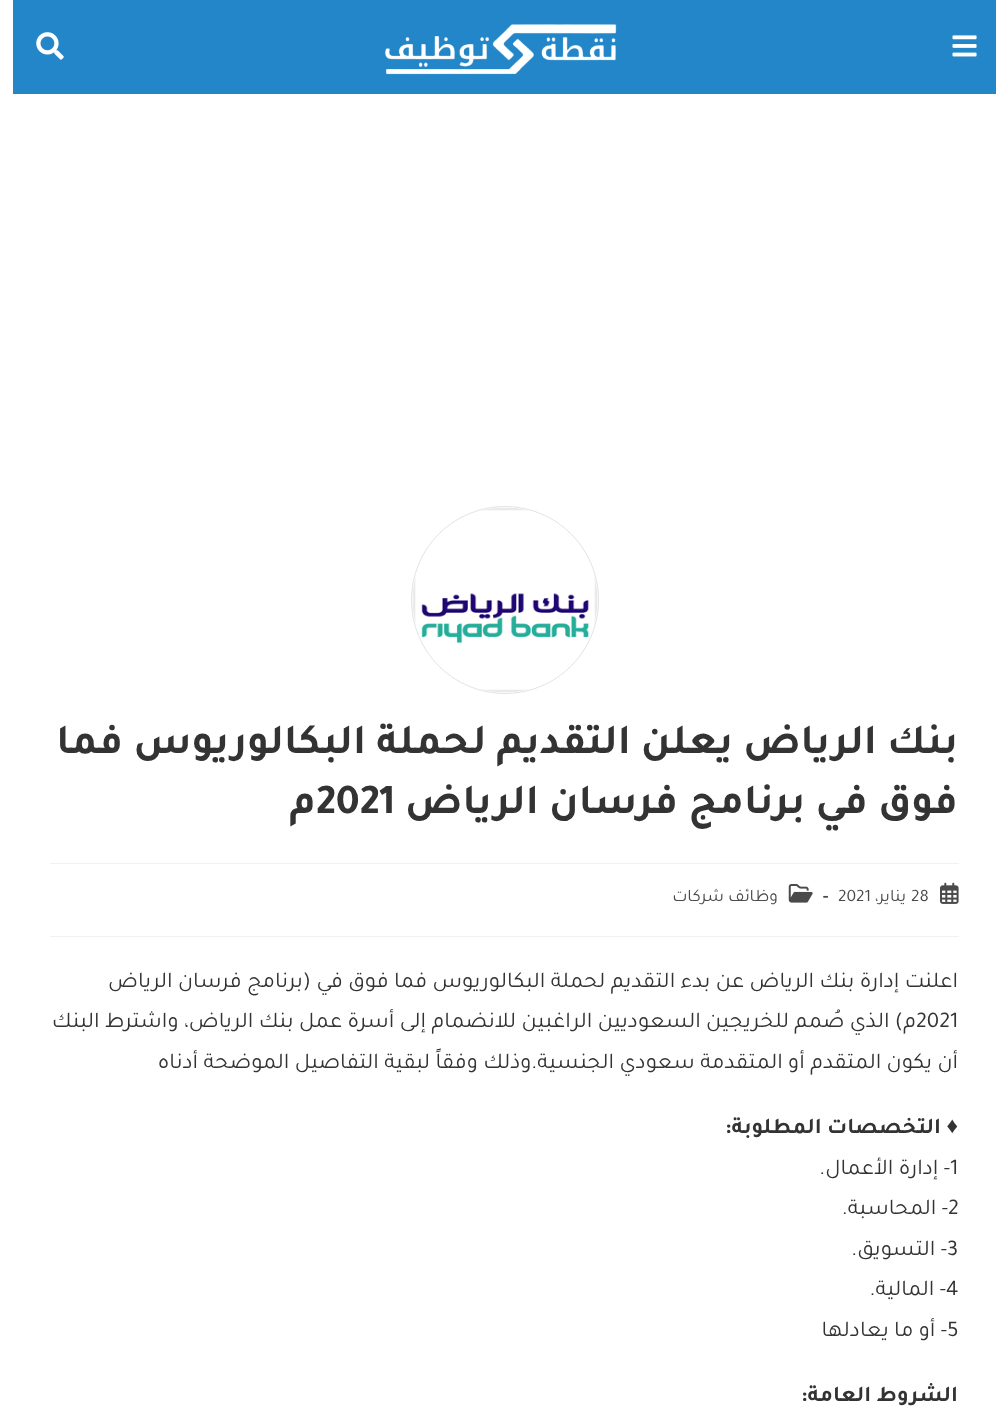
<svg xmlns="http://www.w3.org/2000/svg" xmlns:xlink="http://www.w3.org/1999/xlink" width="1008" height="1415" viewBox="0 0 1008 1415">
<style>
.cls-1{font:bold 42.5px Tajawal;direction:rtl;fill:#333333}
.cls-2{font:bold 42.5px Tajawal;fill:#333333}
.cls-3{font:17.5px Tajawal;fill:#4a4a4a}
.cls-4{font:17.5px Tajawal;direction:rtl;fill:#4a4a4a}
.cls-5{font:bold 17.5px Tajawal;fill:#4a4a4a}
.cls-6{font:22.5px Tajawal;direction:rtl;fill:#333333}
.cls-7{font:22.5px Tajawal;fill:#333333}
.cls-8{font:bold 22.5px Liberation Serif;direction:rtl;fill:#333333}
.cls-9{font:bold 22.5px Tajawal;direction:rtl;fill:#333333}
</style>
<rect width="100%" height="100%" fill="#ffffff"/>
<rect fill="#2286c8" x="13" y="0" width="983" height="94"/>
<image xlink:href="image0.png" x="952" y="35" width="25" height="22"/>
<image xlink:href="image1.png" x="385" y="23" width="232" height="52"/>
<image xlink:href="image2.png" x="36" y="32" width="28" height="28"/>
<circle fill="none" stroke="#e3e3e3" cx="505" cy="600" r="93.5"/>
<image xlink:href="image3.png" x="412" y="507" width="186" height="186"/>
<rect fill="#f1f1f1" x="50" y="863" width="909" height="1"/>
<rect fill="#f1f1f1" x="50" y="936" width="909" height="1"/>
<image xlink:href="image4.png" x="940" y="882" width="19" height="22"/>
<image xlink:href="image5.png" x="788" y="884" width="25" height="19"/>
<text class="cls-1"><tspan x="958" y="753">بنك الرياض يعلن التقديم لحملة البكالوريوس فما</tspan><tspan x="958" y="813">فوق في برنامج فرسان الرياض</tspan></text>
<text class="cls-2" x="316" y="813">2021</text>
<text class="cls-1" x="316" y="813">م</text>
<text class="cls-3" x="911" y="901">28</text>
<text class="cls-4" x="906" y="901">يناير،</text>
<text class="cls-3" x="838" y="901">2021</text>
<text class="cls-5" x="823" y="901">-</text>
<text class="cls-4" x="778" y="901">وظائف شركات</text>
<text class="cls-6" x="958" y="987">اعلنت إدارة بنك الرياض عن بدء التقديم لحملة البكالوريوس فما فوق في (برنامج فرسان الرياض</text>
<text class="cls-7" x="916" y="1027">2021</text>
<text class="cls-6" x="916" y="1027">م) الذي صُمم للخريجين السعوديين الراغبين للانضمام إلى أسرة عمل بنك الرياض، واشترط البنك</text>
<text class="cls-6" x="958" y="1068">أن يكون المتقدم أو المتقدمة سعودي الجنسية.وذلك وفقاً لبقية التفاصيل الموضحة أدناه</text>
<text class="cls-8" x="958" y="1133">♦</text>
<text class="cls-9" x="941" y="1133">التخصصات المطلوبة:</text>
<text class="cls-7" x="950" y="1174">1</text>
<text class="cls-6" x="950" y="1174">- إدارة الأعمال.</text>
<text class="cls-7" x="948" y="1214">2</text>
<text class="cls-6" x="948" y="1214">- المحاسبة.</text>
<text class="cls-7" x="947" y="1255">3</text>
<text class="cls-6" x="947" y="1255">- التسويق.</text>
<text class="cls-7" x="946" y="1295">4</text>
<text class="cls-6" x="946" y="1295">- المالية.</text>
<text class="cls-7" x="947" y="1336">5</text>
<text class="cls-6" x="947" y="1336">- أو ما يعادلها</text>
<text class="cls-9" x="958" y="1401">الشروط العامة:</text>
</svg>
